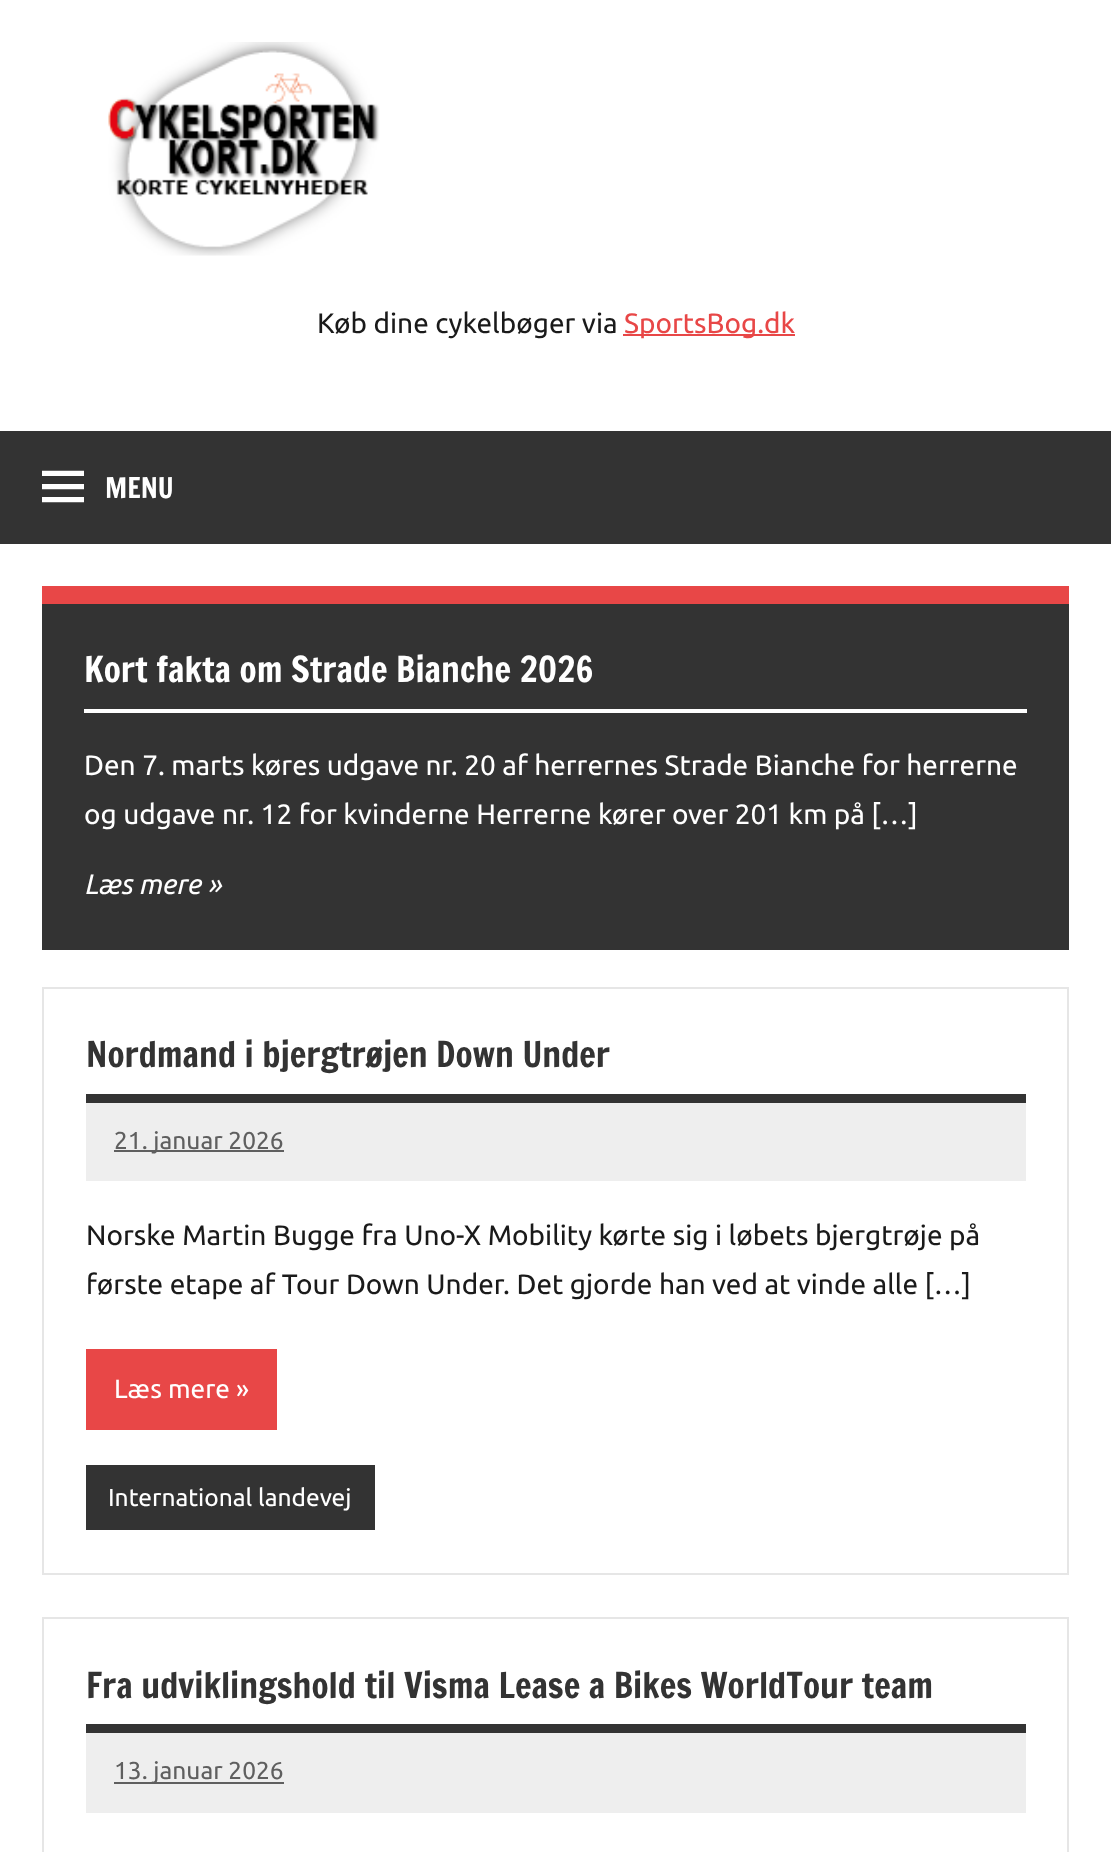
<svg xmlns="http://www.w3.org/2000/svg" xmlns:xlink="http://www.w3.org/1999/xlink" width="1111" height="1852" viewBox="0 0 1111 1852">
<style>
.cls-1{font:28px Ubuntu;fill:#1a1a1a}
.cls-2{font:28px Ubuntu;fill:#e84747}
.cls-3{font:28px Francois One;fill:#ffffff}
.cls-4{font:35px Francois One;fill:#ffffff}
.cls-5{font:28px Ubuntu;fill:#ffffff}
.cls-6{font:italic 28px Ubuntu;fill:#ffffff}
.cls-7{font:35px Francois One;fill:#333333}
.cls-8{font:24.5px Ubuntu;fill:#5f5f5f}
.cls-9{font:26.25px Ubuntu;fill:#ffffff}
.cls-10{font:24.5px Ubuntu;fill:#ffffff}
</style>
<rect width="100%" height="100%" fill="#ffffff"/>
<image xlink:href="image0.png" x="108" y="42" width="272" height="214"/>
<rect fill="#e84747" x="623" y="334" width="172" height="2"/>
<rect fill="#333333" x="0" y="431" width="1111" height="113"/>
<image xlink:href="image1.png" x="42" y="470" width="42" height="33"/>
<rect fill="#333333" x="42" y="604" width="1027" height="346"/>
<rect fill="#e84747" x="42" y="586" width="1027" height="18"/>
<rect fill="#ffffff" x="84" y="709" width="943" height="4"/>
<rect fill="none" stroke="#e6e6e6" stroke-width="2" x="43" y="988" width="1025" height="586"/>
<rect fill="#333333" x="86" y="1094" width="940" height="9"/>
<rect fill="#eeeeee" x="86" y="1103" width="940" height="78"/>
<rect fill="#5f5f5f" x="114" y="1150" width="170" height="2"/>
<rect fill="#e84747" x="86" y="1349" width="191" height="81"/>
<rect fill="#333333" x="86" y="1465" width="289" height="65"/>
<rect fill="none" stroke="#e6e6e6" stroke-width="2" x="43" y="1618" width="1025" height="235"/>
<rect fill="#333333" x="86" y="1724" width="940" height="9"/>
<rect fill="#eeeeee" x="86" y="1733" width="940" height="80"/>
<rect fill="#5f5f5f" x="114" y="1782" width="170" height="2"/>
<text class="cls-1" x="317" y="333">Køb dine cykelbøger via</text>
<text class="cls-2" x="624" y="333">SportsBog.dk</text>
<text class="cls-3" x="105" y="498">MENU</text>
<text class="cls-4" x="84" y="682">Kort fakta om Strade Bianche 2026</text>
<text class="cls-5"><tspan x="84" y="775">Den 7. marts køres udgave nr. 20 af herrernes Strade Bianche for herrerne</tspan><tspan x="84" y="824">og udgave nr. 12 for kvinderne Herrerne kører over 201 km på […]</tspan></text>
<text class="cls-6" x="84" y="894">Læs mere »</text>
<text class="cls-7" x="86" y="1067">Nordmand i bjergtrøjen Down Under</text>
<text class="cls-8" x="114" y="1149">21. januar 2026</text>
<text class="cls-1"><tspan x="86" y="1245">Norske Martin Bugge fra Uno-X Mobility kørte sig i løbets bjergtrøje på</tspan><tspan x="86" y="1294">første etape af Tour Down Under. Det gjorde han ved at vinde alle […]</tspan></text>
<text class="cls-9" x="114" y="1398">Læs mere »</text>
<text class="cls-10" x="108" y="1506">International landevej</text>
<text class="cls-7" x="86" y="1698">Fra udviklingshold til Visma Lease a Bikes WorldTour team</text>
<text class="cls-8" x="114" y="1779">13. januar 2026</text>
</svg>
